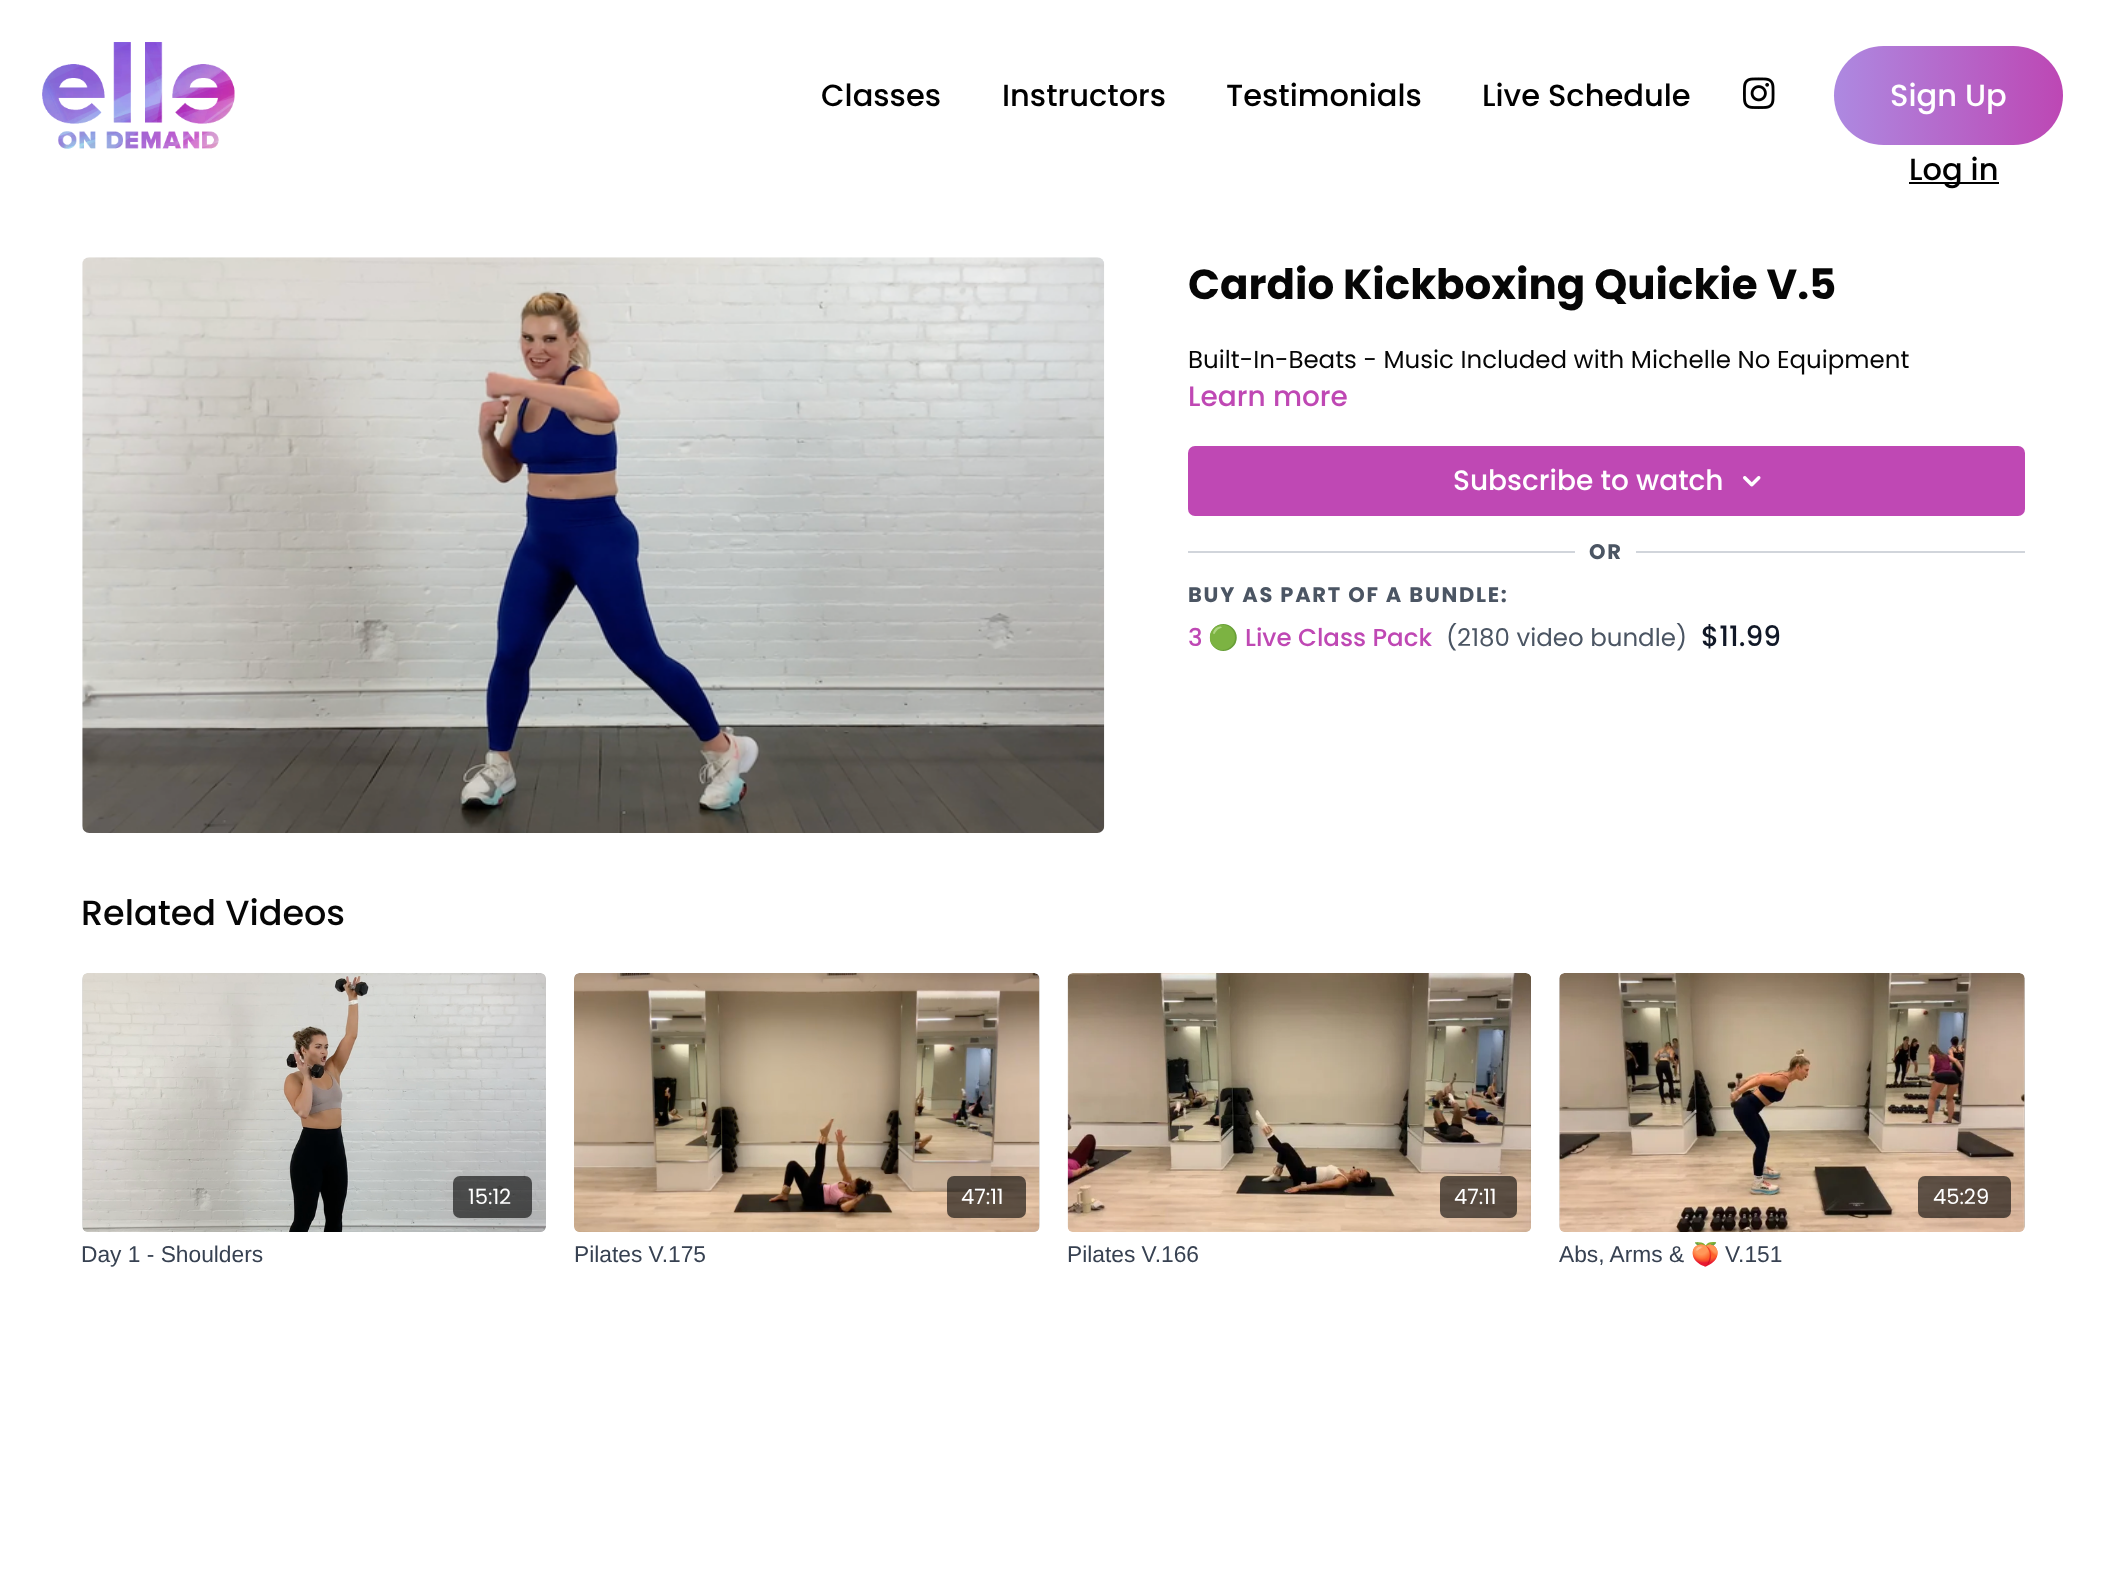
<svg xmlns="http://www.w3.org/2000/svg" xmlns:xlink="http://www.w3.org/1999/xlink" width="2105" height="1589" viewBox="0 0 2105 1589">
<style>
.cls-1{font:500 30.5px Poppins;fill:#000000}
.cls-2{font:500 30.5px Poppins;fill:#ffffff}
.cls-3{font:bold 42px Poppins;fill:#060606}
.cls-4{font:24.5px Poppins;fill:#060606}
.cls-5{font:500 28px Poppins;fill:#bf48b4}
.cls-6{font:500 28px Poppins;fill:#ffffff}
.cls-7{font:bold 21px Poppins;letter-spacing:1.75px;fill:#4b5563}
.cls-8{font:500 24.5px Poppins;fill:#bf48b4}
.cls-9{font:24.5px Noto Color Emoji;fill:#bf48b4}
.cls-10{font:24.5px Poppins;fill:#4b5563}
.cls-11{font:500 28px Poppins;fill:#111827}
.cls-12{font:500 35px Poppins;fill:#060606}
.cls-13{font:21px Poppins;fill:#ffffff}
.cls-14{font:22.75px Liberation Sans;fill:#374151}
.cls-15{font:22.75px Noto Color Emoji;fill:#374151}
</style>
<defs>
<linearGradient id="g1" gradientUnits="userSpaceOnUse" x1="2063" y1="95" x2="1834" y2="95"><stop offset="0" stop-color="#bd47b4"/><stop offset="1" stop-color="#ad89e1"/></linearGradient>
<linearGradient id="g2" gradientUnits="userSpaceOnUse" x1="82" y1="1103" x2="546" y2="1103"><stop offset="0.08" stop-color="#dedede"/><stop offset="0.18" stop-color="#e1e1e1"/><stop offset="0.33" stop-color="#e3e3e3"/></linearGradient>
<linearGradient id="g3" gradientUnits="userSpaceOnUse" x1="574" y1="1103" x2="1040" y2="1103"><stop offset="0.08" stop-color="#dedede"/><stop offset="0.18" stop-color="#e1e1e1"/><stop offset="0.33" stop-color="#e3e3e3"/></linearGradient>
<linearGradient id="g4" gradientUnits="userSpaceOnUse" x1="1559" y1="1103" x2="2025" y2="1103"><stop offset="0.08" stop-color="#dedede"/><stop offset="0.18" stop-color="#e1e1e1"/><stop offset="0.33" stop-color="#e3e3e3"/></linearGradient>
</defs>
<rect width="100%" height="100%" fill="#ffffff"/>
<image xlink:href="image0.png" x="42" y="42" width="193" height="107"/>
<image xlink:href="image1.png" x="1743" y="77" width="32" height="32"/>
<rect fill="url(#g1)" x="1834" y="46" width="229" height="99" rx="49.5"/>
<rect fill="#000000" x="1909" y="182" width="90" height="2"/>
<image xlink:href="image2.png" x="82" y="257" width="1023" height="576"/>
<rect fill="#bf48b4" x="1188" y="446" width="837" height="70" rx="7"/>
<image xlink:href="image3.png" x="1743" y="476" width="18" height="11"/>
<rect fill="#d1d5db" x="1188" y="551" width="837" height="2"/>
<rect fill="#ffffff" x="1575" y="551" width="61" height="2"/>
<rect fill="url(#g2)" x="82" y="973" width="464" height="259" rx="7"/>
<image xlink:href="image4.png" x="82" y="973" width="464" height="259"/>
<rect fill="#000000" fill-opacity="0.6" x="453" y="1176" width="79" height="42" rx="7"/>
<rect fill="url(#g3)" x="574" y="973" width="466" height="259" rx="7"/>
<image xlink:href="image5.png" x="574" y="973" width="466" height="259"/>
<rect fill="#000000" fill-opacity="0.6" x="947" y="1176" width="79" height="42" rx="7"/>
<image xlink:href="image6.png" x="1067" y="973" width="464" height="259"/>
<rect fill="#000000" fill-opacity="0.6" x="1440" y="1176" width="77" height="42" rx="7"/>
<rect fill="url(#g4)" x="1559" y="973" width="466" height="259" rx="7"/>
<image xlink:href="image7.png" x="1559" y="973" width="466" height="259"/>
<rect fill="#000000" fill-opacity="0.6" x="1918" y="1176" width="93" height="42" rx="7"/>
<text class="cls-1" x="821" y="106">Classes</text>
<text class="cls-1" x="1002" y="106">Instructors</text>
<text class="cls-1" x="1226" y="106">Testimonials</text>
<text class="cls-1" x="1482" y="106">Live Schedule</text>
<text class="cls-2" x="1890" y="106">Sign Up</text>
<text class="cls-1" x="1909" y="180">Log in</text>
<text class="cls-3" x="1188" y="299">Cardio Kickboxing Quickie V.5</text>
<text class="cls-4" x="1188" y="368">Built-In-Beats - Music Included with Michelle No Equipment</text>
<text class="cls-5" x="1188" y="406">Learn more</text>
<text class="cls-6" x="1453" y="490">Subscribe to watch</text>
<text class="cls-7" x="1589" y="559">OR</text>
<text class="cls-7" x="1188" y="602">BUY AS PART OF A BUNDLE:</text>
<text class="cls-8" x="1188" y="646">3</text>
<text class="cls-9" x="1208" y="646">🟢</text>
<text class="cls-8" x="1245" y="646">Live Class Pack</text>
<text class="cls-10" x="1446" y="646">(2180 video bundle)</text>
<text class="cls-11" x="1701" y="646">$11.99</text>
<text class="cls-12" x="81" y="925">Related Videos</text>
<text class="cls-13" x="468" y="1204">15:12</text>
<text class="cls-14" x="81" y="1262">Day 1 - Shoulders</text>
<text class="cls-13" x="961" y="1204">47:11</text>
<text class="cls-14" x="574" y="1262">Pilates V.175</text>
<text class="cls-13" x="1454" y="1204">47:11</text>
<text class="cls-14" x="1067" y="1262">Pilates V.166</text>
<text class="cls-13" x="1933" y="1204">45:29</text>
<text class="cls-14" x="1559" y="1262">Abs, Arms &amp;</text>
<text class="cls-15" x="1691" y="1262">🍑</text>
<text class="cls-14" x="1725" y="1262">V.151</text>
</svg>
